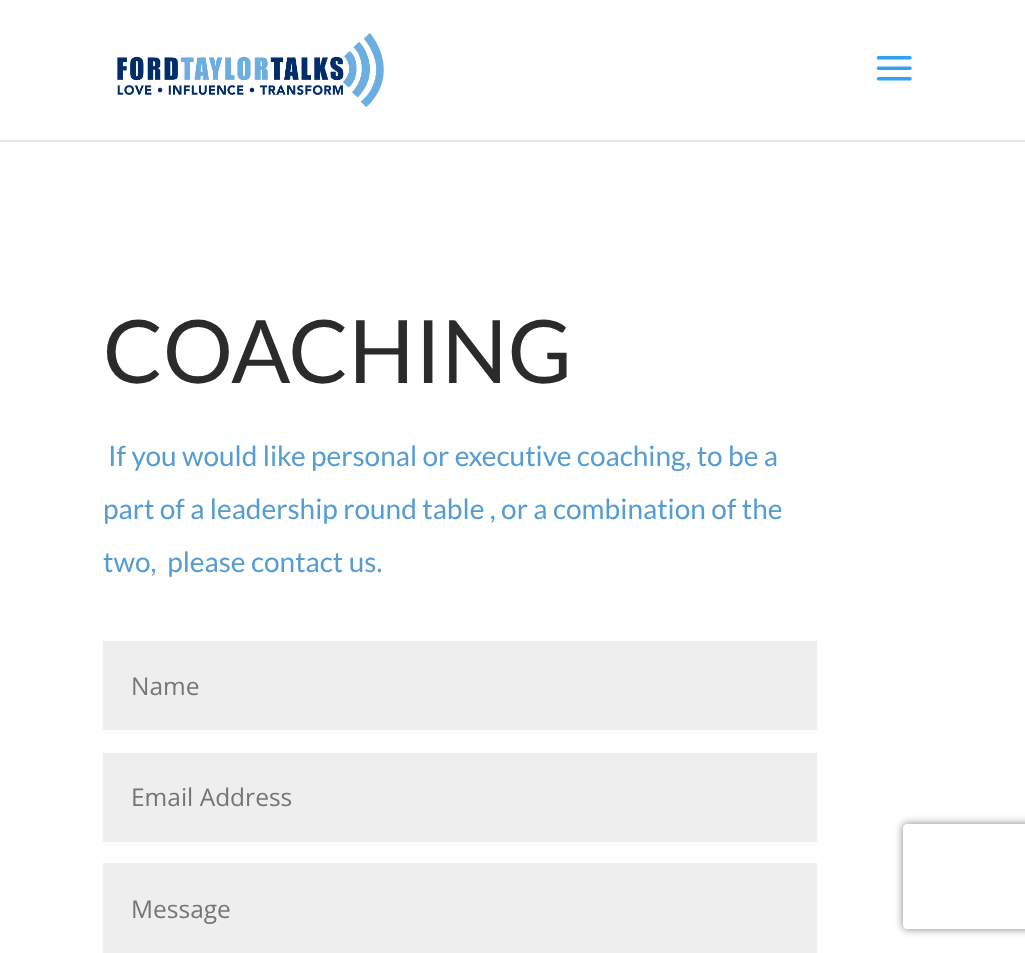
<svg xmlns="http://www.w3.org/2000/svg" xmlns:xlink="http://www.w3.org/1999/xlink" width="1025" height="953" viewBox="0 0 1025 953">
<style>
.cls-1{font:87.5px Lato;fill:#2b2b2b}
.cls-2{font:28px Lato;fill:#559cd2}
.cls-3{font:24.5px Open Sans;fill:#757575}
</style>
<defs>
<clipPath id="clip1"><path d="M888 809H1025V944H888ZM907 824H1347C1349 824 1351 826 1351 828V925C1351 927 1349 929 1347 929H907C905 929 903 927 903 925V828C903 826 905 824 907 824Z" clip-rule="evenodd"/></clipPath>
</defs>
<rect width="100%" height="100%" fill="#ffffff"/>
<path fill="#e6e6e6" d="M0 140V142H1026V2V140Z"/>
<image xlink:href="image0.png" x="117" y="33" width="267" height="74"/>
<image xlink:href="image1.png" x="876" y="56" width="36" height="25"/>
<rect fill="#eeeeee" x="103" y="641" width="714" height="89"/>
<rect fill="#eeeeee" x="103" y="753" width="714" height="89"/>
<rect fill="#eeeeee" x="103" y="863" width="714" height="90"/>
<g clip-path="url(#clip1)">
<rect fill="#808080" filter="blur(4.5px)" x="903" y="824" width="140" height="105" rx="4"/>
</g>
<text class="cls-1" x="103" y="383">COACHING</text>
<text class="cls-2" x="108" y="466">If you would like personal or executive coaching, to be a</text>
<text class="cls-2" xml:space="preserve"><tspan x="103" y="519">part of a leadership round table , or a combination of the</tspan><tspan x="103" y="572">two,  please contact us.</tspan></text>
<text class="cls-3" x="131" y="695">Name</text>
<text class="cls-3" x="131" y="806">Email Address</text>
<text class="cls-3" x="131" y="918">Message</text>
</svg>
